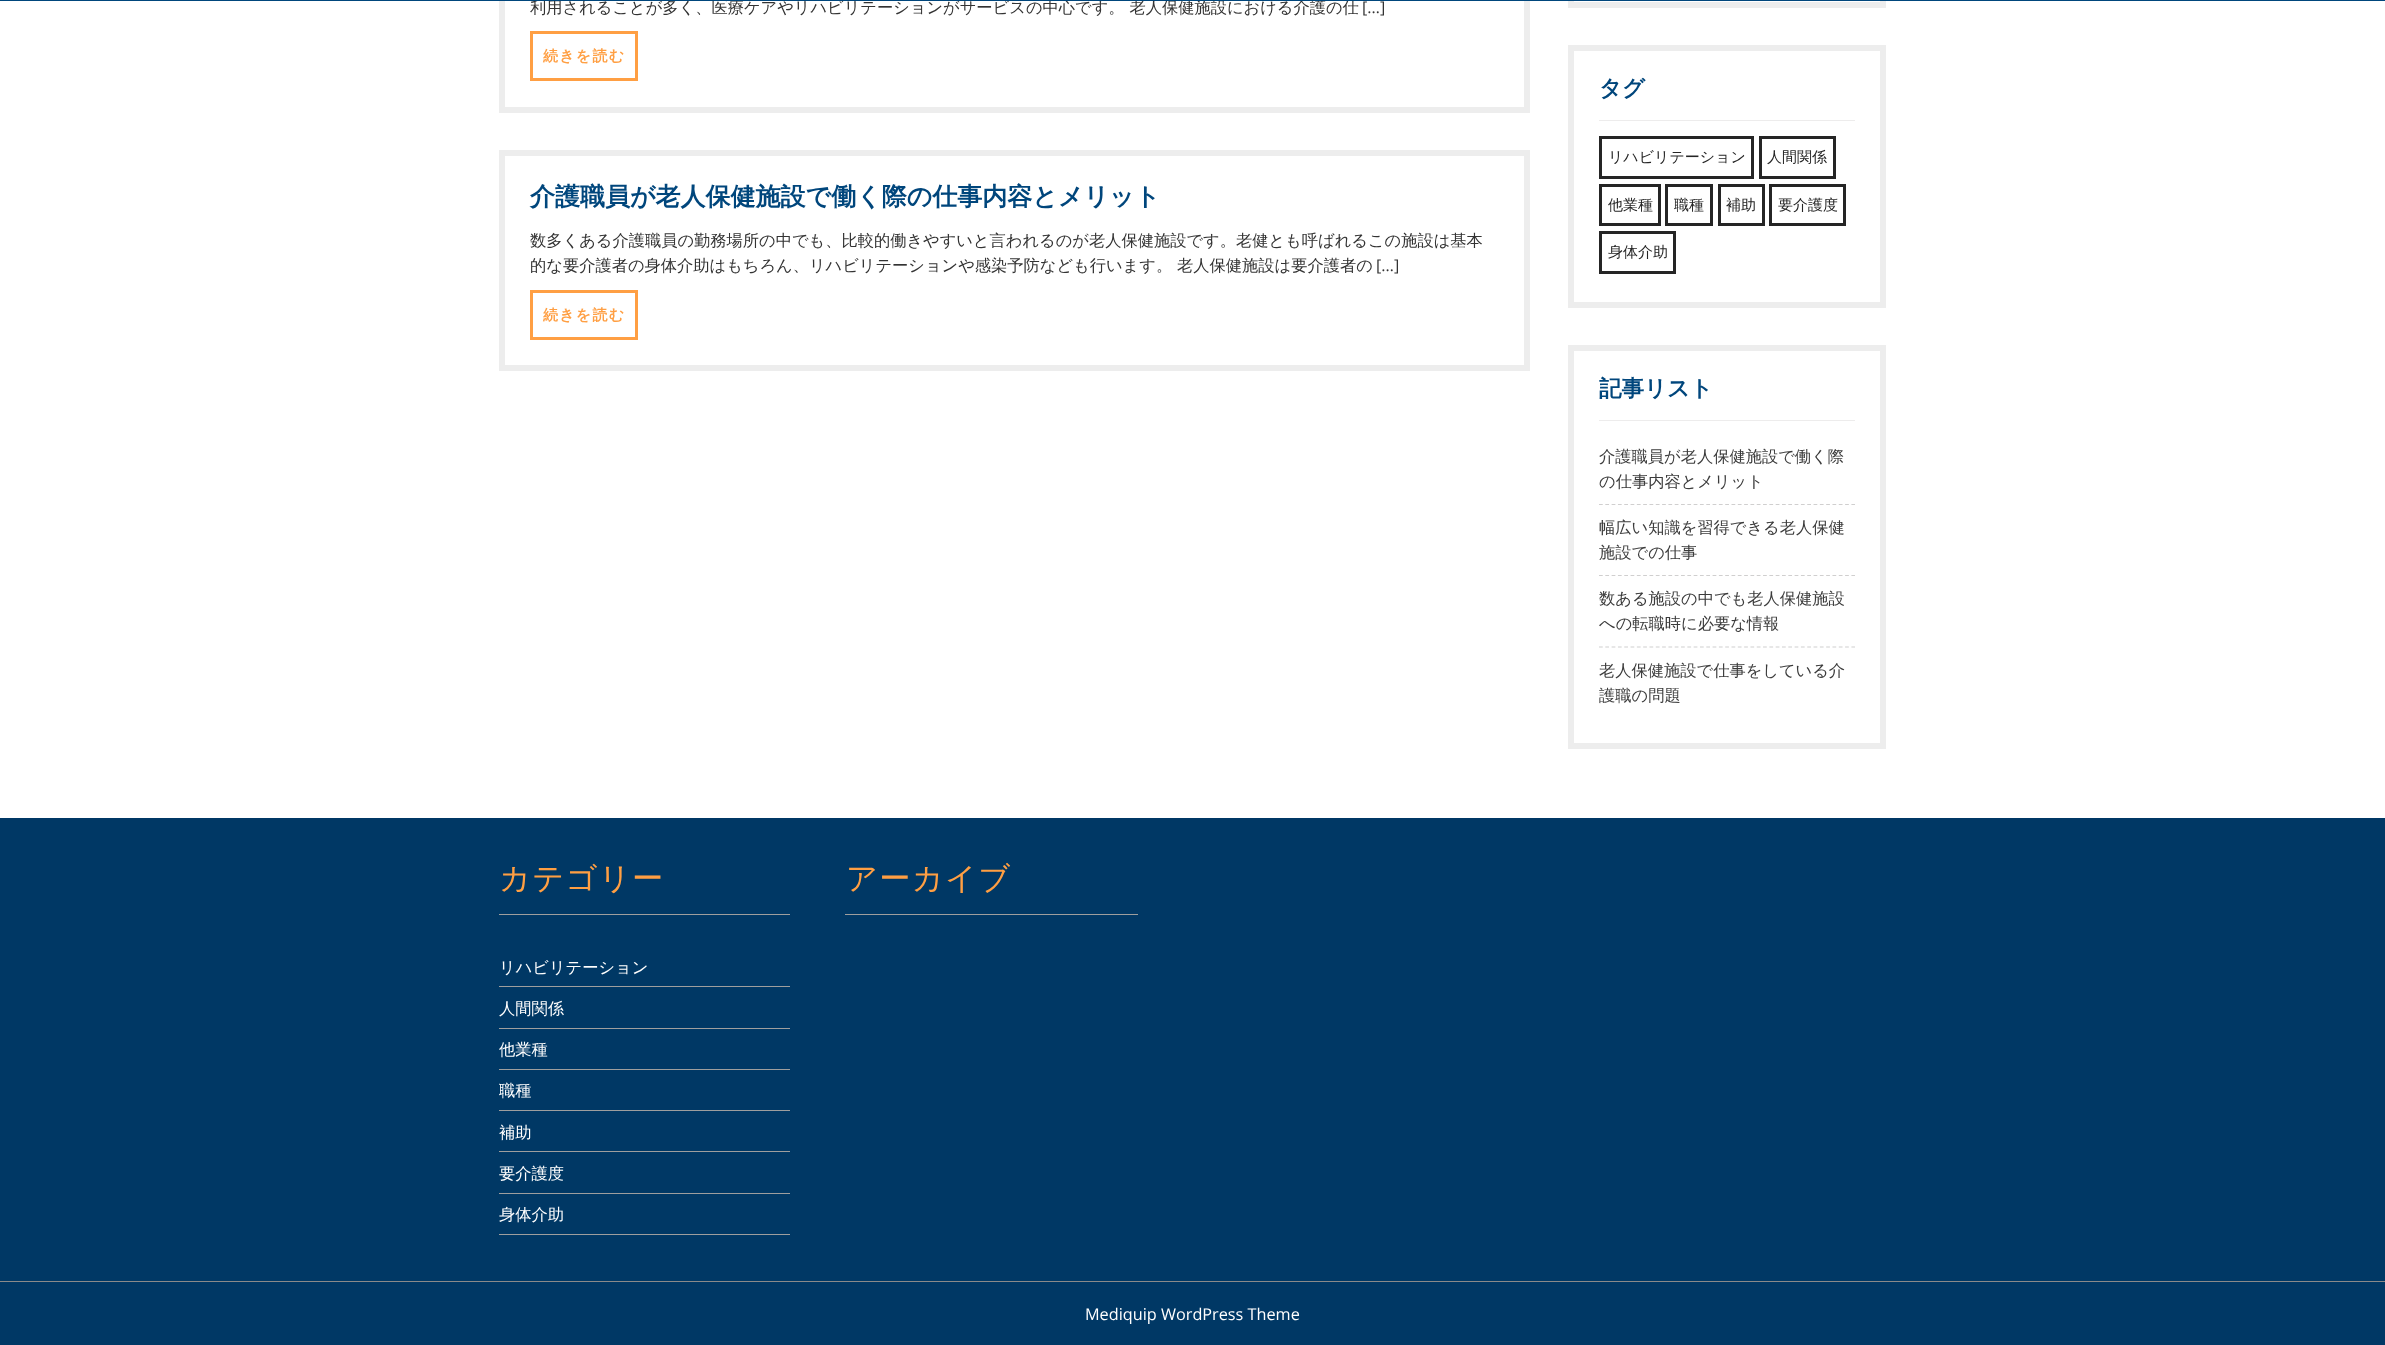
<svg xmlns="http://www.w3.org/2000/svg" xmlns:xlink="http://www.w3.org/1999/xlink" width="2385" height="1345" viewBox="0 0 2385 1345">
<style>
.cls-1{font:500 16.25px WenQuanYi Zen Hei;fill:#333333}
.cls-2{font:16.25px Open Sans;fill:#333333}
.cls-3{font:bold 15px WenQuanYi Zen Hei;letter-spacing:1.25px;fill:#ff9f43}
.cls-4{font:bold 25px WenQuanYi Zen Hei;fill:#00467c}
.cls-5{font:bold 22.5px WenQuanYi Zen Hei;fill:#00467c}
.cls-6{font:500 15px WenQuanYi Zen Hei;fill:#252525}
.cls-7{font:500 16.25px WenQuanYi Zen Hei;fill:#3b3b3b}
.cls-8{font:500 31.25px WenQuanYi Zen Hei;letter-spacing:1.25px;fill:#ff9f43}
.cls-9{font:500 16.25px WenQuanYi Zen Hei;fill:#ffffff}
.cls-10{font:16.25px Open Sans;fill:#ffffff}
</style>
<rect width="100%" height="100%" fill="#ffffff"/>
<rect fill="none" stroke="#ededed" stroke-width="6" x="502" y="-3" width="1025" height="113"/>
<rect fill="none" stroke="#ff9f43" stroke-width="3" x="531.5" y="32.5" width="105" height="47"/>
<rect fill="none" stroke="#ededed" stroke-width="6" x="502" y="153" width="1025" height="215"/>
<rect fill="none" stroke="#ff9f43" stroke-width="3" x="531.5" y="291.5" width="105" height="47"/>
<rect fill="none" stroke="#ededed" stroke-width="6" x="1571" y="-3" width="312" height="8"/>
<rect fill="none" stroke="#ededed" stroke-width="6" x="1571" y="48" width="312" height="257"/>
<rect fill="#edecec" x="1599" y="120" width="256" height="1"/>
<rect fill="none" stroke="#252525" stroke-width="3" x="1600.5" y="137.5" width="152" height="40"/>
<rect fill="none" stroke="#252525" stroke-width="3" x="1760.5" y="137.5" width="74" height="40"/>
<rect fill="none" stroke="#252525" stroke-width="3" x="1600.5" y="185.5" width="59" height="39"/>
<rect fill="none" stroke="#252525" stroke-width="3" x="1666.5" y="185.5" width="45" height="39"/>
<rect fill="none" stroke="#252525" stroke-width="3" x="1719.5" y="185.5" width="44" height="39"/>
<rect fill="none" stroke="#252525" stroke-width="3" x="1770.5" y="185.5" width="74" height="39"/>
<rect fill="none" stroke="#252525" stroke-width="3" x="1600.5" y="232.5" width="74" height="40"/>
<rect fill="none" stroke="#ededed" stroke-width="6" x="1571" y="348" width="312" height="398"/>
<rect fill="#edecec" x="1599" y="420" width="256" height="1"/>
<path fill="none" stroke="#d0cfcf" stroke-width="1.2" stroke-dasharray="3.75 2.56" d="M1599 504.5H1855"/>
<path fill="none" stroke="#d0cfcf" stroke-width="1.2" stroke-dasharray="3.75 2.56" d="M1599 575.5H1855"/>
<path fill="none" stroke="#d0cfcf" stroke-width="1.2" stroke-dasharray="3.75 2.56" d="M1599 647H1855"/>
<rect fill="#003865" x="0" y="818" width="2385" height="527"/>
<rect fill="#9e9e9e" x="499" y="914" width="291" height="1"/>
<rect fill="#9e9e9e" x="499" y="986" width="291" height="1"/>
<rect fill="#9e9e9e" x="499" y="1028" width="291" height="1"/>
<rect fill="#9e9e9e" x="499" y="1069" width="291" height="1"/>
<rect fill="#9e9e9e" x="499" y="1110" width="291" height="1"/>
<rect fill="#9e9e9e" x="499" y="1151" width="291" height="1"/>
<rect fill="#9e9e9e" x="499" y="1193" width="291" height="1"/>
<rect fill="#9e9e9e" x="499" y="1234" width="291" height="1"/>
<rect fill="#9e9e9e" x="845" y="914" width="293" height="1"/>
<rect fill="#8a8a8a" x="0" y="1281" width="2385" height="1"/>
<text class="cls-1" x="530" y="13">利用されることが多く、医療ケアやリハビリテーションがサービスの中心です。 老人保健施設における介護の仕</text>
<rect fill="#00467c" x="0" y="0" width="2385" height="1"/>
<text class="cls-2" x="1362" y="13">[…]</text>
<text class="cls-3" x="543" y="61">続きを読む</text>
<text class="cls-4" x="530" y="205">介護職員が老人保健施設で働く際の仕事内容とメリット</text>
<text class="cls-1"><tspan x="530" y="246">数多くある介護職員の勤務場所の中でも、比較的働きやすいと言われるのが老人保健施設です。老健とも呼ばれるこの施設は基本</tspan><tspan x="530" y="271">的な要介護者の身体介助はもちろん、リハビリテーションや感染予防なども行います。 老人保健施設は要介護者の</tspan></text>
<text class="cls-2" x="1376" y="271">[…]</text>
<text class="cls-3" x="543" y="320">続きを読む</text>
<text class="cls-5" x="1599" y="96">タグ</text>
<text class="cls-6" x="1608" y="162">リハビリテーション</text>
<text class="cls-6" x="1767" y="162">人間関係</text>
<text class="cls-6" x="1608" y="210">他業種</text>
<text class="cls-6" x="1674" y="210">職種</text>
<text class="cls-6" x="1726" y="210">補助</text>
<text class="cls-6" x="1778" y="210">要介護度</text>
<text class="cls-6" x="1608" y="257">身体介助</text>
<text class="cls-5" x="1599" y="396">記事リスト</text>
<text class="cls-7"><tspan x="1599" y="462">介護職員が老人保健施設で働く際</tspan><tspan x="1599" y="487">の仕事内容とメリット</tspan></text>
<text class="cls-7"><tspan x="1599" y="533">幅広い知識を習得できる老人保健</tspan><tspan x="1599" y="558">施設での仕事</tspan></text>
<text class="cls-7"><tspan x="1599" y="604">数ある施設の中でも老人保健施設</tspan><tspan x="1599" y="629">への転職時に必要な情報</tspan></text>
<text class="cls-7"><tspan x="1599" y="676">老人保健施設で仕事をしている介</tspan><tspan x="1599" y="701">護職の問題</tspan></text>
<text class="cls-8" x="499" y="889">カテゴリー</text>
<text class="cls-9" x="499" y="973">リハビリテーション</text>
<text class="cls-9" x="499" y="1014">人間関係</text>
<text class="cls-9" x="499" y="1055">他業種</text>
<text class="cls-9" x="499" y="1096">職種</text>
<text class="cls-9" x="499" y="1138">補助</text>
<text class="cls-9" x="499" y="1179">要介護度</text>
<text class="cls-9" x="499" y="1220">身体介助</text>
<text class="cls-8" x="846" y="889">アーカイブ</text>
<text class="cls-10" x="1085" y="1320">Mediquip WordPress Theme</text>
</svg>
